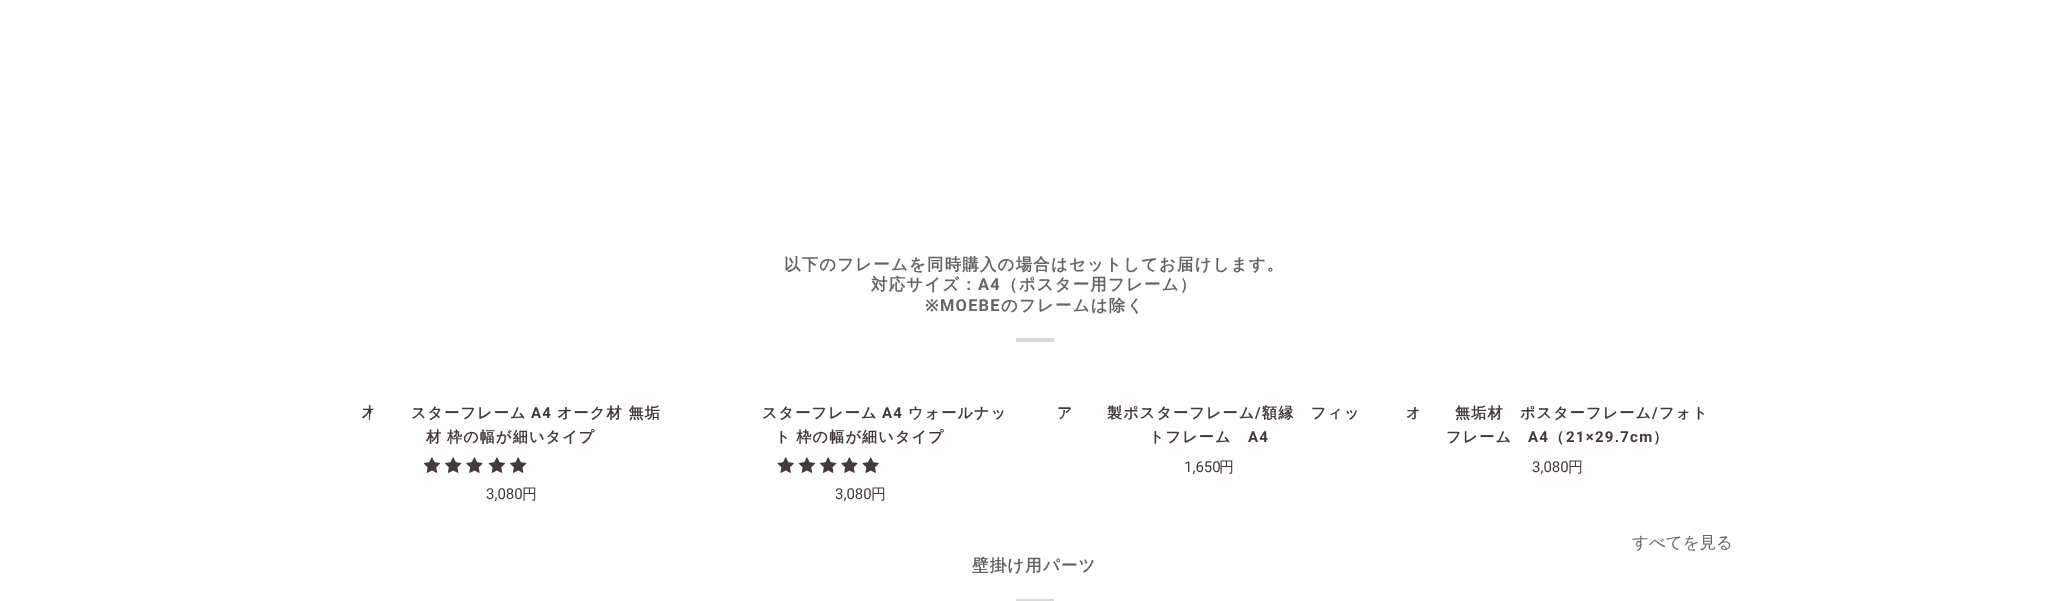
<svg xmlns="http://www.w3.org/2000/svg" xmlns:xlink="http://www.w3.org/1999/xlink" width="2068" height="601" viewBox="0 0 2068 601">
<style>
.cls-1{font:bold 16.4px WenQuanYi Zen Hei;letter-spacing:1.25px;fill:#656565}
.cls-2{font:bold 16.4px Roboto;letter-spacing:1.25px;fill:#656565}
.cls-3{font:bold 16.4px Noto Sans;letter-spacing:1.25px;fill:#656565}
.cls-4{font:bold 15px WenQuanYi Zen Hei;letter-spacing:1.25px;fill:#453939}
.cls-5{font:bold 15px Roboto;letter-spacing:1.25px;fill:#453939}
.cls-6{font:15px Roboto;fill:#453939}
.cls-7{font:500 15px WenQuanYi Zen Hei;fill:#453939}
.cls-8{font:500 16.5px WenQuanYi Zen Hei;fill:#656565}
</style>
<rect width="100%" height="100%" fill="#ffffff"/>
<rect fill="#dad7d7" x="1016" y="338" width="38" height="4"/>
<image xlink:href="image0.png" x="423" y="457" width="17" height="16"/>
<image xlink:href="image1.png" x="445" y="457" width="17" height="16"/>
<image xlink:href="image2.png" x="466" y="457" width="17" height="16"/>
<image xlink:href="image0.png" x="488" y="457" width="17" height="16"/>
<image xlink:href="image1.png" x="510" y="457" width="17" height="16"/>
<image xlink:href="image3.png" x="777" y="457" width="17" height="16"/>
<image xlink:href="image0.png" x="798" y="457" width="17" height="16"/>
<image xlink:href="image1.png" x="820" y="457" width="17" height="16"/>
<image xlink:href="image2.png" x="841" y="457" width="17" height="16"/>
<image xlink:href="image3.png" x="862" y="457" width="17" height="16"/>
<rect fill="#dad7d7" x="1016" y="599" width="38" height="2"/>
<text class="cls-1" x="784" y="270">以下のフレームを同時購入の場合はセットしてお届けします。</text>
<text class="cls-1" x="871" y="290">対応サイズ：</text>
<text class="cls-2" x="978" y="290">A4</text>
<text class="cls-1" x="1001" y="290">（ポスター用フレーム）</text>
<text class="cls-3" x="925" y="311">※</text>
<text class="cls-2" x="940" y="311">MOEBE</text>
<text class="cls-1" x="1001" y="311">のフレームは除く</text>
<text class="cls-4" x="362" y="418">木</text>
<ellipse fill="#ffffff" cx="389" cy="419" rx="19" ry="17.5"/>
<text class="cls-4" x="411" y="418">スターフレーム</text>
<text class="cls-5" x="531" y="418">A4</text>
<text class="cls-4" x="557" y="418">オーク材 無垢</text>
<text class="cls-4" x="426" y="442" word-spacing="-1">材 枠の幅が細いタイプ</text>
<text class="cls-6" x="486" y="499">3,080</text>
<text class="cls-7" x="522" y="499">円</text>
<text class="cls-4" x="762" y="418">スターフレーム</text>
<text class="cls-5" x="882" y="418">A4</text>
<text class="cls-4" x="908" y="418">ウォールナッ</text>
<text class="cls-4" x="775" y="442" word-spacing="-1">ト 枠の幅が細いタイプ</text>
<text class="cls-6" x="835" y="499">3,080</text>
<text class="cls-7" x="871" y="499">円</text>
<text class="cls-4" x="1057" y="418">ア</text>
<ellipse fill="#ffffff" cx="1086" cy="419" rx="19" ry="17.5"/>
<text class="cls-4" x="1107" y="418">製ポスターフレーム</text>
<text class="cls-5" x="1255" y="418">/</text>
<text class="cls-4" x="1262" y="418">額縁　フィッ</text>
<text class="cls-4" x="1149" y="442">トフレーム</text>
<text class="cls-5" x="1248" y="442">A4</text>
<text class="cls-6" x="1184" y="472">1,650</text>
<text class="cls-7" x="1219" y="472">円</text>
<text class="cls-4" x="1406" y="418">オ</text>
<text class="cls-4" x="1455" y="418">無垢材　ポスターフレーム</text>
<text class="cls-5" x="1652" y="418">/</text>
<text class="cls-4" x="1659" y="418">フォト</text>
<text class="cls-4" x="1446" y="442">フレーム</text>
<ellipse fill="#ffffff" cx="1435" cy="419" rx="19" ry="17.5"/>
<text class="cls-5" x="1528" y="442">A4</text>
<text class="cls-4" x="1549" y="442">（</text>
<text class="cls-5" x="1566" y="442">21×29.7cm</text>
<text class="cls-4" x="1653" y="442">）</text>
<text class="cls-6" x="1532" y="472">3,080</text>
<text class="cls-7" x="1568" y="472">円</text>
<text class="cls-8" x="1632" y="548">すべてを見る</text>
<text class="cls-1" x="972" y="571">壁掛け用パーツ</text>
</svg>
